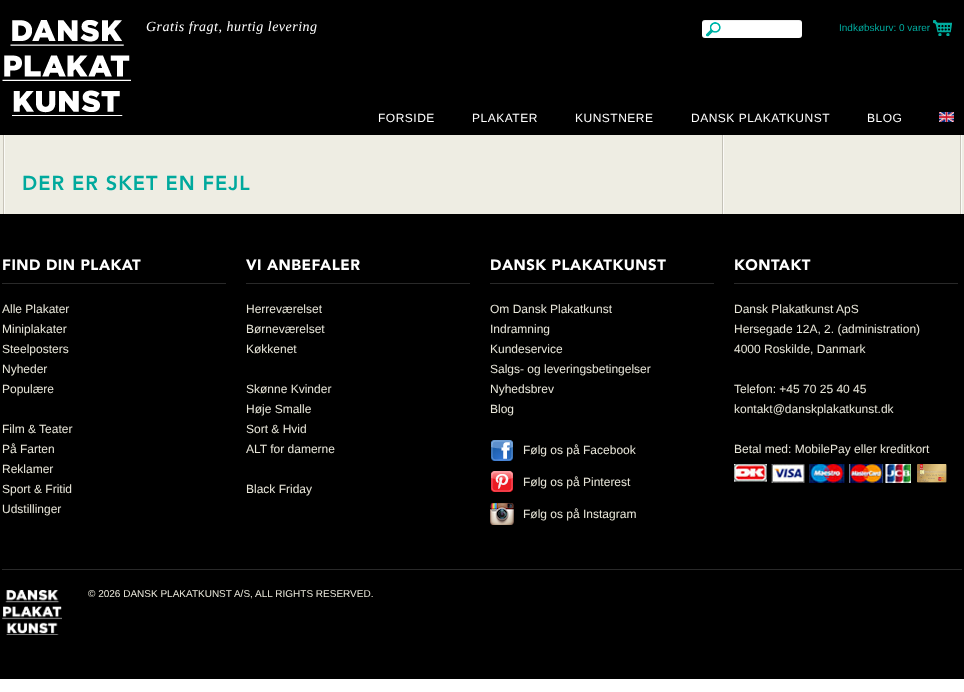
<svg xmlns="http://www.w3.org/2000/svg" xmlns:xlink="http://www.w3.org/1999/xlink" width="964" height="692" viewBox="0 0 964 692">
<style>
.cls-1{font:italic 14px Liberation Serif;letter-spacing:0.5px;fill:#ffffff}
.cls-2{font:10px Liberation Sans;fill:#00a99d}
.cls-3{font:12px Liberation Sans;letter-spacing:0.5px;fill:#ffffff}
.cls-4{font:900 20px 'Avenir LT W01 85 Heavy';letter-spacing:1px;fill:#00a99d}
.cls-5{font:900 15px 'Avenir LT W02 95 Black';letter-spacing:0.5px;fill:#ffffff}
.cls-6{font:12px Liberation Sans;fill:#e8e6d9}
.cls-7{font:10px Liberation Sans;fill:#e8e6d9}
</style>
<rect width="100%" height="100%" fill="#ffffff"/>
<rect fill="#000000" x="0" y="0" width="964" height="135"/>
<image xlink:href="image0.png" x="2" y="20" width="129" height="96"/>
<rect fill="#ffffff" x="702" y="20" width="100" height="18" rx="3"/>
<image xlink:href="image1.png" x="706" y="22" width="15" height="15"/>
<path fill="#000000" fill-opacity="0.07" d="M705 21H799C801 21 802 22 802 24C802 16 786 20 783 20H721C718 20 702 16 702 24C702 22 703 21 705 21Z"/>
<image xlink:href="image2.png" x="933" y="20" width="19" height="16"/>
<image xlink:href="image3.png" x="939" y="112" width="15" height="10"/>
<rect fill="#eeede3" x="0" y="135" width="964" height="79"/>
<image xlink:href="image4.png" x="3" y="135" width="959" height="79"/>
<rect fill="#fbfaf7" x="723" y="135" width="1" height="79"/>
<rect fill="#c4c2b7" x="722" y="135" width="1" height="79"/>
<rect fill="#000000" x="0" y="214" width="964" height="465"/>
<rect fill="#292929" x="2" y="283" width="224" height="1"/>
<rect fill="#292929" x="246" y="283" width="224" height="1"/>
<rect fill="#292929" x="490" y="283" width="224" height="1"/>
<image xlink:href="image5.png" x="491" y="440" width="22" height="21"/>
<image xlink:href="image6.png" x="491" y="471" width="22" height="21"/>
<image xlink:href="image7.png" x="490" y="503" width="24" height="22"/>
<rect fill="#292929" x="734" y="283" width="224" height="1"/>
<image xlink:href="image8.png" x="734" y="464" width="213" height="19"/>
<rect fill="#292929" x="2" y="569" width="960" height="1"/>
<image xlink:href="image9.png" x="2" y="590" width="60" height="45"/>
<text class="cls-1" x="146" y="31">Gratis fragt, hurtig levering</text>
<text class="cls-2" x="839" y="31">Indkøbskurv: 0 varer</text>
<text class="cls-3" x="378" y="122">FORSIDE</text>
<text class="cls-3" x="472" y="122">PLAKATER</text>
<text class="cls-3" x="575" y="122">KUNSTNERE</text>
<text class="cls-3" x="691" y="122">DANSK PLAKATKUNST</text>
<text class="cls-3" x="867" y="122">BLOG</text>
<text class="cls-4" x="22" y="190">DER ER SKET EN FEJL</text>
<text class="cls-5" x="2" y="270">FIND DIN PLAKAT</text>
<text class="cls-6"><tspan x="2" y="313">Alle Plakater</tspan><tspan x="2" y="333">Miniplakater</tspan><tspan x="2" y="353">Steelposters</tspan><tspan x="2" y="373">Nyheder</tspan><tspan x="2" y="393">Populære</tspan></text>
<text class="cls-6"><tspan x="2" y="433">Film &amp; Teater</tspan><tspan x="2" y="453">På Farten</tspan><tspan x="2" y="473">Reklamer</tspan><tspan x="2" y="493">Sport &amp; Fritid</tspan><tspan x="2" y="513">Udstillinger</tspan></text>
<text class="cls-5" x="246" y="270">VI ANBEFALER</text>
<text class="cls-6"><tspan x="246" y="313">Herreværelset</tspan><tspan x="246" y="333">Børneværelset</tspan><tspan x="246" y="353">Køkkenet</tspan></text>
<text class="cls-6"><tspan x="246" y="393">Skønne Kvinder</tspan><tspan x="246" y="413">Høje Smalle</tspan><tspan x="246" y="433">Sort &amp; Hvid</tspan><tspan x="246" y="453">ALT for damerne</tspan></text>
<text class="cls-6" x="246" y="493">Black Friday</text>
<text class="cls-5" x="490" y="270">DANSK PLAKATKUNST</text>
<text class="cls-6"><tspan x="490" y="313">Om Dansk Plakatkunst</tspan><tspan x="490" y="333">Indramning</tspan><tspan x="490" y="353">Kundeservice</tspan><tspan x="490" y="373">Salgs- og leveringsbetingelser</tspan><tspan x="490" y="393">Nyhedsbrev</tspan><tspan x="490" y="413">Blog</tspan></text>
<text class="cls-6" x="523" y="454">Følg os på Facebook</text>
<text class="cls-6" x="523" y="486">Følg os på Pinterest</text>
<text class="cls-6" x="523" y="518">Følg os på Instagram</text>
<text class="cls-5" x="734" y="270">KONTAKT</text>
<text class="cls-6"><tspan x="734" y="313">Dansk Plakatkunst ApS</tspan><tspan x="734" y="333">Hersegade 12A, 2. (administration)</tspan><tspan x="734" y="353">4000 Roskilde, Danmark</tspan></text>
<text class="cls-6"><tspan x="734" y="393">Telefon: +45 70 25 40 45</tspan><tspan x="734" y="413">kontakt@danskplakatkunst.dk</tspan></text>
<text class="cls-6" x="734" y="453">Betal med: MobilePay eller kreditkort</text>
<text class="cls-7" x="88" y="597">© 2026 DANSK PLAKATKUNST A/S, ALL RIGHTS RESERVED.</text>
</svg>
